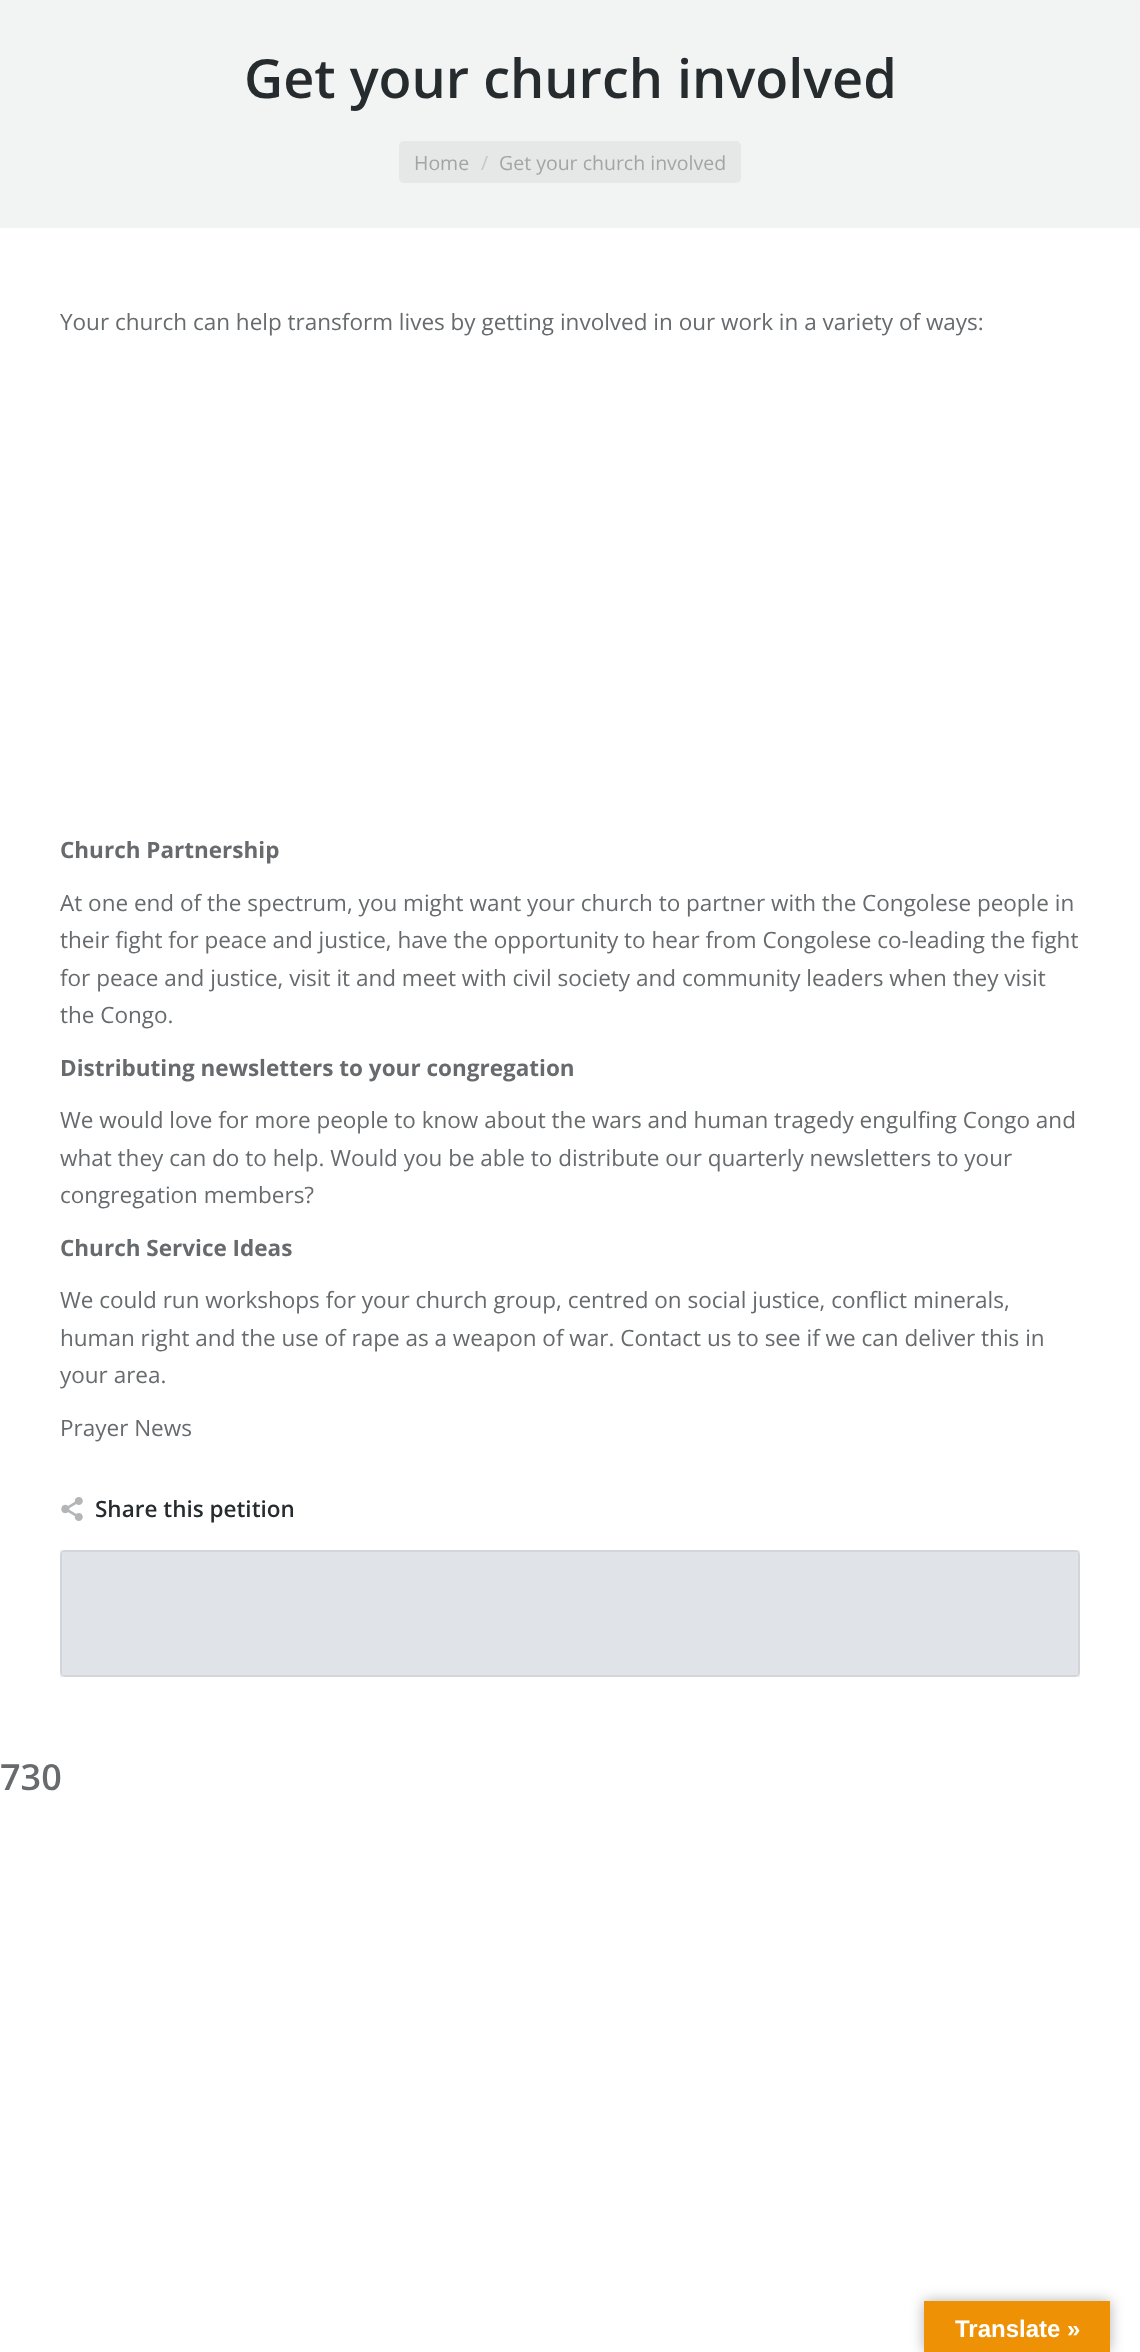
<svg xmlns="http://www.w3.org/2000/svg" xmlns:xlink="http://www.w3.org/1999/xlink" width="1140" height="2352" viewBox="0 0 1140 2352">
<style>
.cls-1{font:600 54px Open Sans;fill:#262b2e}
.cls-2{font:19.5px Open Sans;fill:#a2a5a6}
.cls-3{font:19.5px Open Sans;fill:#c4c6c7}
.cls-4{font:22.5px Open Sans;fill:#676b6d}
.cls-5{font:bold 22.5px Open Sans;fill:#676b6d}
.cls-6{font:600 22.5px Open Sans;fill:#262b2e}
.cls-7{font:600 36px Open Sans;fill:#676b6d}
.cls-8{font:bold 24px Liberation Sans;fill:#ffffff}
</style>
<rect width="100%" height="100%" fill="#ffffff"/>
<rect fill="#f2f3f3" x="0" y="0" width="1140" height="228"/>
<rect fill="#e6e7e7" x="399" y="141" width="342" height="42" rx="5"/>
<image xlink:href="image0.png" x="61" y="1497" width="22" height="24"/>
<rect fill="#e0e3e7" x="60" y="1550" width="1020" height="127" rx="5"/>
<rect fill="none" stroke="#000000" stroke-opacity="0.06" stroke-width="2" x="61" y="1551" width="1018" height="125"/>
<rect fill="#000000" fill-opacity="0.3" filter="blur(7px)" x="924" y="2301" width="186" height="51"/>
<rect fill="#ef9104" x="924" y="2301" width="186" height="51"/>
<text class="cls-1" x="244" y="98">Get your church involved</text>
<text class="cls-2" x="414" y="170">Home</text>
<text class="cls-3" x="481" y="170">/</text>
<text class="cls-2" x="499" y="170">Get your church involved</text>
<text class="cls-4" x="60" y="330">Your church can help transform lives by getting involved in our work in a variety of ways:</text>
<text class="cls-5" x="60" y="858">Church Partnership</text>
<text class="cls-4"><tspan x="60" y="911">At one end of the spectrum, you might want your church to partner with the Congolese people in</tspan><tspan x="60" y="948">their fight for peace and justice, have the opportunity to hear from Congolese co-leading the fight</tspan><tspan x="60" y="986">for peace and justice, visit it and meet with civil society and community leaders when they visit</tspan><tspan x="60" y="1023">the Congo.</tspan></text>
<text class="cls-5" x="60" y="1076">Distributing newsletters to your congregation</text>
<text class="cls-4"><tspan x="60" y="1128">We would love for more people to know about the wars and human tragedy engulfing Congo and</tspan><tspan x="60" y="1166">what they can do to help. Would you be able to distribute our quarterly newsletters to your</tspan><tspan x="60" y="1203">congregation members?</tspan></text>
<text class="cls-5" x="60" y="1256">Church Service Ideas</text>
<text class="cls-4"><tspan x="60" y="1308">We could run workshops for your church group, centred on social justice, conflict minerals,</tspan><tspan x="60" y="1346">human right and the use of rape as a weapon of war. Contact us to see if we can deliver this in</tspan><tspan x="60" y="1383">your area.</tspan></text>
<text class="cls-4" x="60" y="1436">Prayer News</text>
<text class="cls-6" x="95" y="1517">Share this petition</text>
<text class="cls-7" x="0" y="1790">730</text>
<text class="cls-8" x="955" y="2337">Translate »</text>
</svg>
